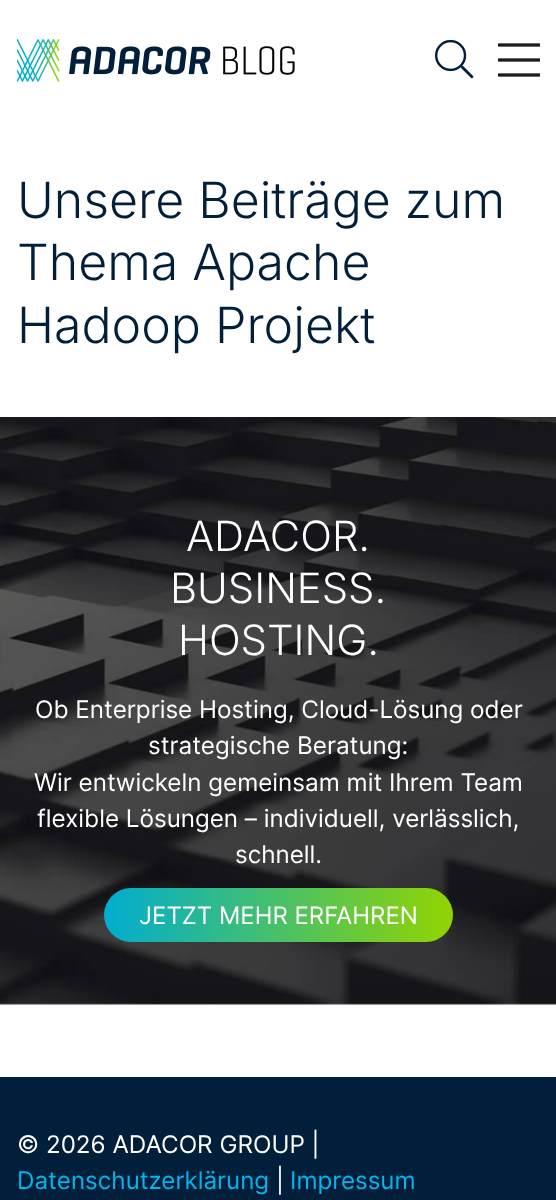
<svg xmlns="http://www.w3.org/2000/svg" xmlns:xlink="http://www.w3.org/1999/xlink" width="556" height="1200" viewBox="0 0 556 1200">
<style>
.cls-1{font:300 50px Inter;fill:#011f3a}
.cls-2{font:300 41.75px Inter;fill:#ffffff}
.cls-3{font:24.25px Inter;fill:#ffffff}
.cls-4{font:24px Inter;fill:#ffffff}
.cls-5{font:24.25px Inter;fill:#01b6ed}
</style>
<defs>
<linearGradient id="g1" gradientUnits="userSpaceOnUse" x1="104" y1="915" x2="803" y2="915"><stop offset="0" stop-color="#00add0"/><stop offset="0.5" stop-color="#92d400"/><stop offset="1" stop-color="#00add0"/></linearGradient>
</defs>
<rect width="100%" height="100%" fill="#ffffff"/>
<image xlink:href="image0.png" x="17" y="39" width="278" height="43"/>
<image xlink:href="image1.png" x="435" y="39" width="39" height="40"/>
<image xlink:href="image2.png" x="498" y="43" width="42" height="34"/>
<image xlink:href="image3.png" x="0" y="417" width="556" height="588"/>
<rect fill="url(#g1)" x="104" y="888" width="349" height="54" rx="27"/>
<rect fill="#011f3a" x="0" y="1077" width="556" height="123"/>
<text class="cls-1"><tspan x="17" y="218">Unsere Beiträge zum</tspan><tspan x="17" y="280">Thema Apache</tspan><tspan x="17" y="343">Hadoop Projekt</tspan></text>
<text class="cls-2" x="186" y="551">ADACOR.</text>
<text class="cls-2" x="170" y="603">BUSINESS.</text>
<text class="cls-2" x="178" y="655">HOSTING.</text>
<text class="cls-3" x="35" y="718">Ob Enterprise Hosting, Cloud-Lösung oder</text>
<text class="cls-3" x="148" y="754">strategische Beratung:</text>
<text class="cls-3" x="34" y="791">Wir entwickeln gemeinsam mit Ihrem Team</text>
<text class="cls-3" x="37" y="827">flexible Lösungen – individuell, verlässlich,</text>
<text class="cls-3" x="235" y="863">schnell.</text>
<text class="cls-4" x="139" y="924">JETZT MEHR ERFAHREN</text>
<text class="cls-3" x="17" y="1153">© 2026 ADACOR GROUP |</text>
<text class="cls-5" x="17" y="1189">Datenschutzerklärung</text>
<text class="cls-3" x="276" y="1189">|</text>
<text class="cls-5" x="290" y="1189">Impressum</text>
</svg>
